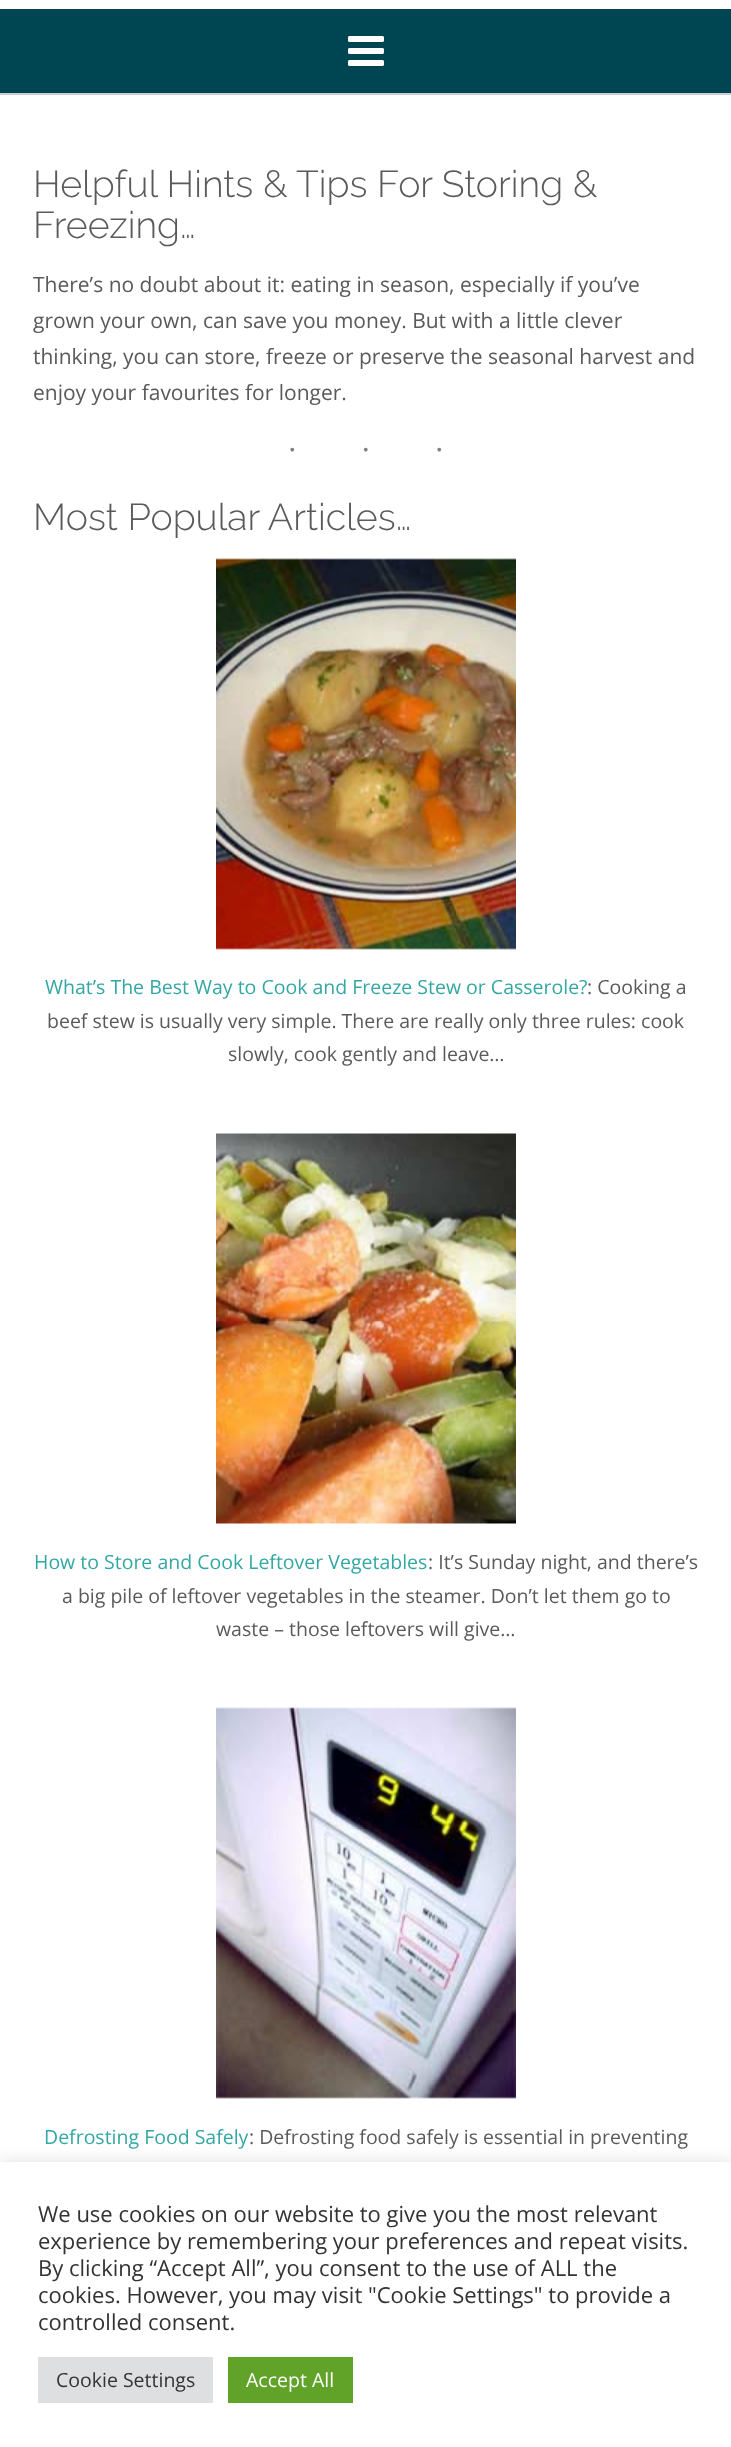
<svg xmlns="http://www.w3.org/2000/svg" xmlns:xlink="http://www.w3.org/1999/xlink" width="731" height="2447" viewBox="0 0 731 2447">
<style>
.cls-1{font:300 37.5px Raleway;fill:#5a5a5a}
.cls-2{font:21px Open Sans;fill:#5a5a5a}
.cls-3{font:31.5px Liberation Serif;letter-spacing:63px;fill:#808080}
.cls-4{font:19.5px Open Sans;fill:#33a7a4}
.cls-5{font:19.5px Open Sans;fill:#5a5a5a}
.cls-6{font:22px Open Sans;fill:#333333}
.cls-7{font:19.5px Open Sans;fill:#333333}
.cls-8{font:19.5px Open Sans;fill:#ffffff}
</style>
<rect width="100%" height="100%" fill="#ffffff"/>
<rect fill="#004652" x="0" y="9" width="731" height="84"/>
<rect fill="#cacfd0" x="0" y="93" width="731" height="2"/>
<image xlink:href="image0.png" x="348" y="36" width="36" height="30"/>
<image xlink:href="image1.png" x="216" y="558" width="300" height="392"/>
<image xlink:href="image2.png" x="216" y="1133" width="300" height="391"/>
<image xlink:href="image3.png" x="216" y="1707" width="300" height="392"/>
<rect fill="#acabab" fill-opacity="0.3" filter="blur(7.5px)" x="0" y="2160" width="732" height="287"/>
<rect fill="#ffffff" x="0" y="2162" width="731" height="285"/>
<rect fill="#dedfe0" x="38" y="2357" width="175" height="46"/>
<rect fill="#61a229" x="228" y="2357" width="125" height="46"/>
<text class="cls-1"><tspan x="33" y="197">Helpful Hints &amp; Tips For Storing &amp;</tspan><tspan x="33" y="238">Freezing…</tspan></text>
<text class="cls-2"><tspan x="33" y="292">There’s no doubt about it: eating in season, especially if you’ve</tspan><tspan x="33" y="328">grown your own, can save you money. But with a little clever</tspan><tspan x="33" y="364">thinking, you can store, freeze or preserve the seasonal harvest and</tspan><tspan x="33" y="400">enjoy your favourites for longer.</tspan></text>
<text class="cls-3" x="287" y="460">···</text>
<text class="cls-1" x="33" y="530">Most Popular Articles…</text>
<text class="cls-4" x="45" y="994">What’s The Best Way to Cook and Freeze Stew or Casserole?</text>
<text class="cls-5" x="587" y="994">: Cooking a</text>
<text class="cls-5" x="47" y="1028">beef stew is usually very simple. There are really only three rules: cook</text>
<text class="cls-5" x="228" y="1061">slowly, cook gently and leave…</text>
<text class="cls-4" x="34" y="1569">How to Store and Cook Leftover Vegetables</text>
<text class="cls-5" x="428" y="1569">: It’s Sunday night, and there’s</text>
<text class="cls-5" x="62" y="1603">a big pile of leftover vegetables in the steamer. Don’t let them go to</text>
<text class="cls-5" x="216" y="1636">waste – those leftovers will give…</text>
<text class="cls-4" x="44" y="2144">Defrosting Food Safely</text>
<text class="cls-5" x="249" y="2144">: Defrosting food safely is essential in preventing</text>
<text class="cls-6"><tspan x="38" y="2222">We use cookies on our website to give you the most relevant</tspan><tspan x="38" y="2249">experience by remembering your preferences and repeat visits.</tspan><tspan x="38" y="2276">By clicking “Accept All”, you consent to the use of ALL the</tspan><tspan x="38" y="2303">cookies. However, you may visit "Cookie Settings" to provide a</tspan><tspan x="38" y="2330">controlled consent.</tspan></text>
<text class="cls-7" x="56" y="2387">Cookie Settings</text>
<text class="cls-8" x="246" y="2387">Accept All</text>
</svg>
